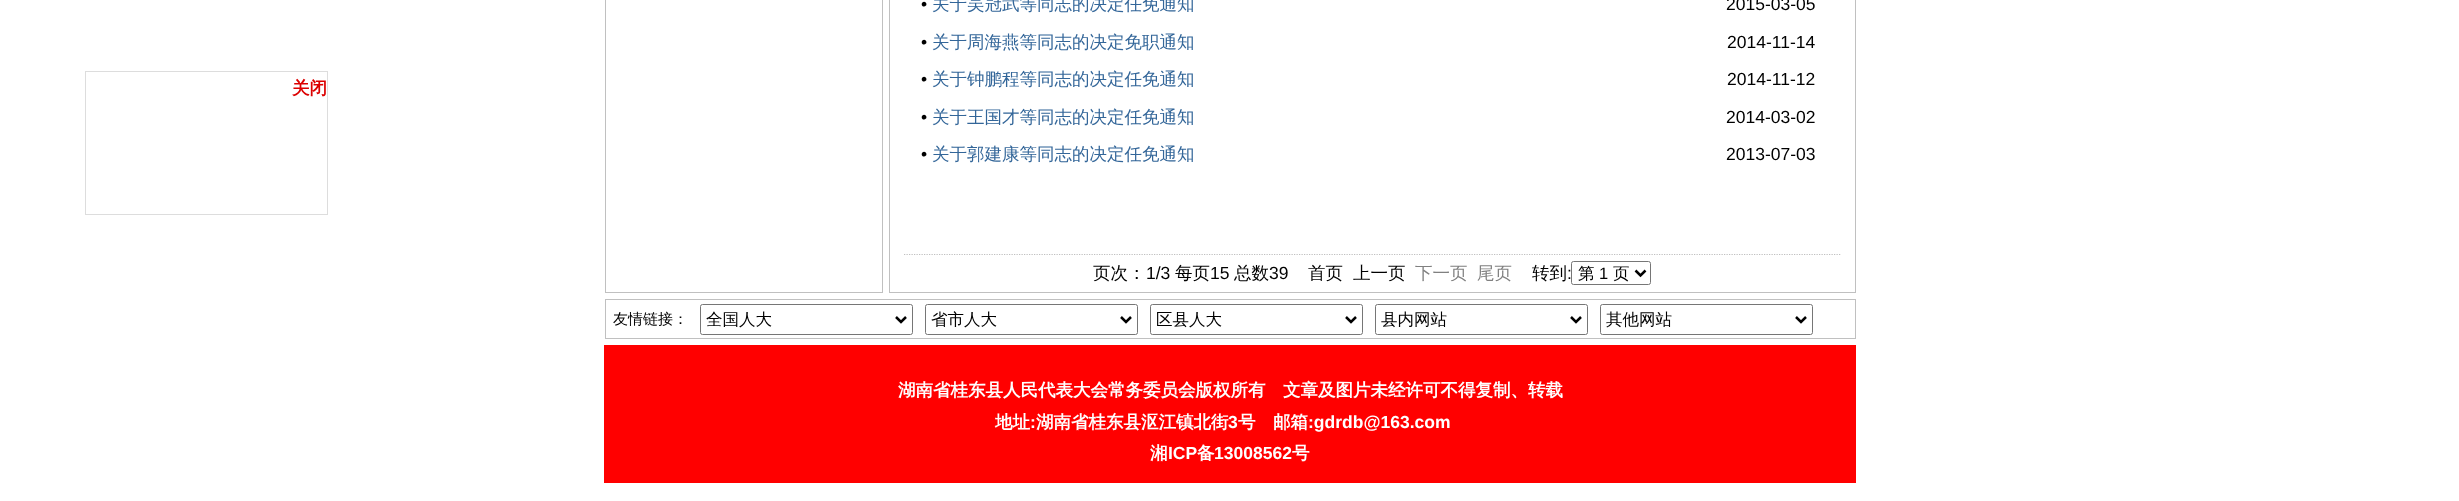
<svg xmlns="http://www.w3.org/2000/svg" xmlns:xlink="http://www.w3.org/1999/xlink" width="2459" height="501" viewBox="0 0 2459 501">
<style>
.cls-1{font:17.5px Liberation Sans;fill:#000000}
.cls-2{font:500 17.5px WenQuanYi Zen Hei;fill:#336699}
.cls-3{font:500 17.5px WenQuanYi Zen Hei;fill:#000000}
.cls-4{font:500 17.5px WenQuanYi Zen Hei;fill:#808080}
.cls-5{font:500 16.5px WenQuanYi Zen Hei;fill:#000000}
.cls-6{font:16.5px Liberation Sans;fill:#000000}
.cls-7{font:bold 17.5px WenQuanYi Zen Hei;fill:#dc0000}
.cls-8{font:bold 17.5px WenQuanYi Zen Hei;fill:#ffffff}
.cls-9{font:bold 17.5px Liberation Sans;fill:#ffffff}
.cls-10{font:500 15px WenQuanYi Zen Hei;fill:#000000}
</style>
<rect width="100%" height="100%" fill="#ffffff"/>
<rect fill="none" stroke="#c0c0c0" x="605.5" y="-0.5" width="277" height="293"/>
<rect fill="none" stroke="#c0c0c0" x="889.5" y="-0.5" width="966" height="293"/>
<path fill="none" stroke="#c0c0c0" stroke-width="1.2" stroke-dasharray="1.25 1.25" d="M904 254.5H1841"/>
<rect fill="none" stroke="#767676" x="1571.5" y="261.5" width="79" height="23" rx="2"/>
<path fill="none" stroke="#000000" stroke-width="2.5" d="M1635.5 270.5L1640.5 275.5L1645.5 270.5"/>
<rect fill="#ff0000" x="604" y="345" width="1252" height="138"/>
<rect fill="none" stroke="#dddddd" x="85.5" y="71.5" width="242" height="143"/>
<rect fill="none" stroke="#c0c0c0" x="605.5" y="299.5" width="1250" height="39"/>
<rect fill="none" stroke="#767676" x="700.5" y="304.5" width="212" height="30" rx="2"/>
<path fill="none" stroke="#000000" stroke-width="2.5" d="M896 317L901 322L906 317"/>
<rect fill="none" stroke="#767676" x="925.5" y="304.5" width="212" height="30" rx="2"/>
<path fill="none" stroke="#000000" stroke-width="2.5" d="M1121 317L1126 322L1131 317"/>
<rect fill="none" stroke="#767676" x="1150.5" y="304.5" width="212" height="30" rx="2"/>
<path fill="none" stroke="#000000" stroke-width="2.5" d="M1346 317L1351 322L1356 317"/>
<rect fill="none" stroke="#767676" x="1375.5" y="304.5" width="212" height="30" rx="2"/>
<path fill="none" stroke="#000000" stroke-width="2.5" d="M1571 317L1576 322L1581 317"/>
<rect fill="none" stroke="#767676" x="1600.5" y="304.5" width="212" height="30" rx="2"/>
<path fill="none" stroke="#000000" stroke-width="2.5" d="M1796 317L1801 322L1806 317"/>
<text class="cls-1" x="921" y="10">•</text>
<text class="cls-2" x="932" y="10">关于吴冠武等同志的决定任免通知</text>
<text class="cls-1" x="1726" y="10">2015-03-05</text>
<text class="cls-1" x="921" y="48">•</text>
<text class="cls-2" x="932" y="48">关于周海燕等同志的决定免职通知</text>
<text class="cls-1" x="1727" y="48">2014-11-14</text>
<text class="cls-1" x="921" y="85">•</text>
<text class="cls-2" x="932" y="85">关于钟鹏程等同志的决定任免通知</text>
<text class="cls-1" x="1727" y="85">2014-11-12</text>
<text class="cls-1" x="921" y="123">•</text>
<text class="cls-2" x="932" y="123">关于王国才等同志的决定任免通知</text>
<text class="cls-1" x="1726" y="123">2014-03-02</text>
<text class="cls-1" x="921" y="160">•</text>
<text class="cls-2" x="932" y="160">关于郭建康等同志的决定任免通知</text>
<text class="cls-1" x="1726" y="160">2013-07-03</text>
<text class="cls-3" x="1093" y="279">页次：</text>
<text class="cls-1" x="1146" y="279">1/3</text>
<text class="cls-3" x="1175" y="279">每页</text>
<text class="cls-1" x="1210" y="279">15</text>
<text class="cls-3" x="1234" y="279">总数</text>
<text class="cls-1" x="1269" y="279">39</text>
<text class="cls-3" x="1308" y="279">首页</text>
<text class="cls-3" x="1353" y="279">上一页</text>
<text class="cls-4" x="1415" y="279">下一页</text>
<text class="cls-4" x="1477" y="279">尾页</text>
<text class="cls-3" x="1532" y="279">转到</text>
<text class="cls-1" x="1567" y="279">:</text>
<text class="cls-5" x="1578" y="279">第</text>
<text class="cls-6" x="1599" y="279">1</text>
<text class="cls-5" x="1613" y="279">页</text>
<text class="cls-7" x="292" y="94">关闭</text>
<text class="cls-8" x="898" y="396">湖南省桂东县人民代表大会常务委员会版权所有</text>
<text class="cls-8" x="1283" y="396">文章及图片未经许可不得复制、转载</text>
<text class="cls-8" x="995" y="428">地址</text>
<text class="cls-9" x="1030" y="428">:</text>
<text class="cls-8" x="1036" y="428">湖南省桂东县沤江镇北街</text>
<text class="cls-9" x="1228" y="428">3</text>
<text class="cls-8" x="1238" y="428">号　邮箱</text>
<text class="cls-9" x="1308" y="428">:gdrdb@163.com</text>
<text class="cls-8" x="1150" y="459">湘</text>
<text class="cls-9" x="1168" y="459">ICP</text>
<text class="cls-8" x="1197" y="459">备</text>
<text class="cls-9" x="1214" y="459">13008562</text>
<text class="cls-8" x="1292" y="459">号</text>
<text class="cls-10" x="613" y="324">友情链接：</text>
<text class="cls-5" x="706" y="325">全国人大</text>
<text class="cls-5" x="931" y="325">省市人大</text>
<text class="cls-5" x="1156" y="325">区县人大</text>
<text class="cls-5" x="1381" y="325">县内网站</text>
<text class="cls-5" x="1606" y="325">其他网站</text>
</svg>
